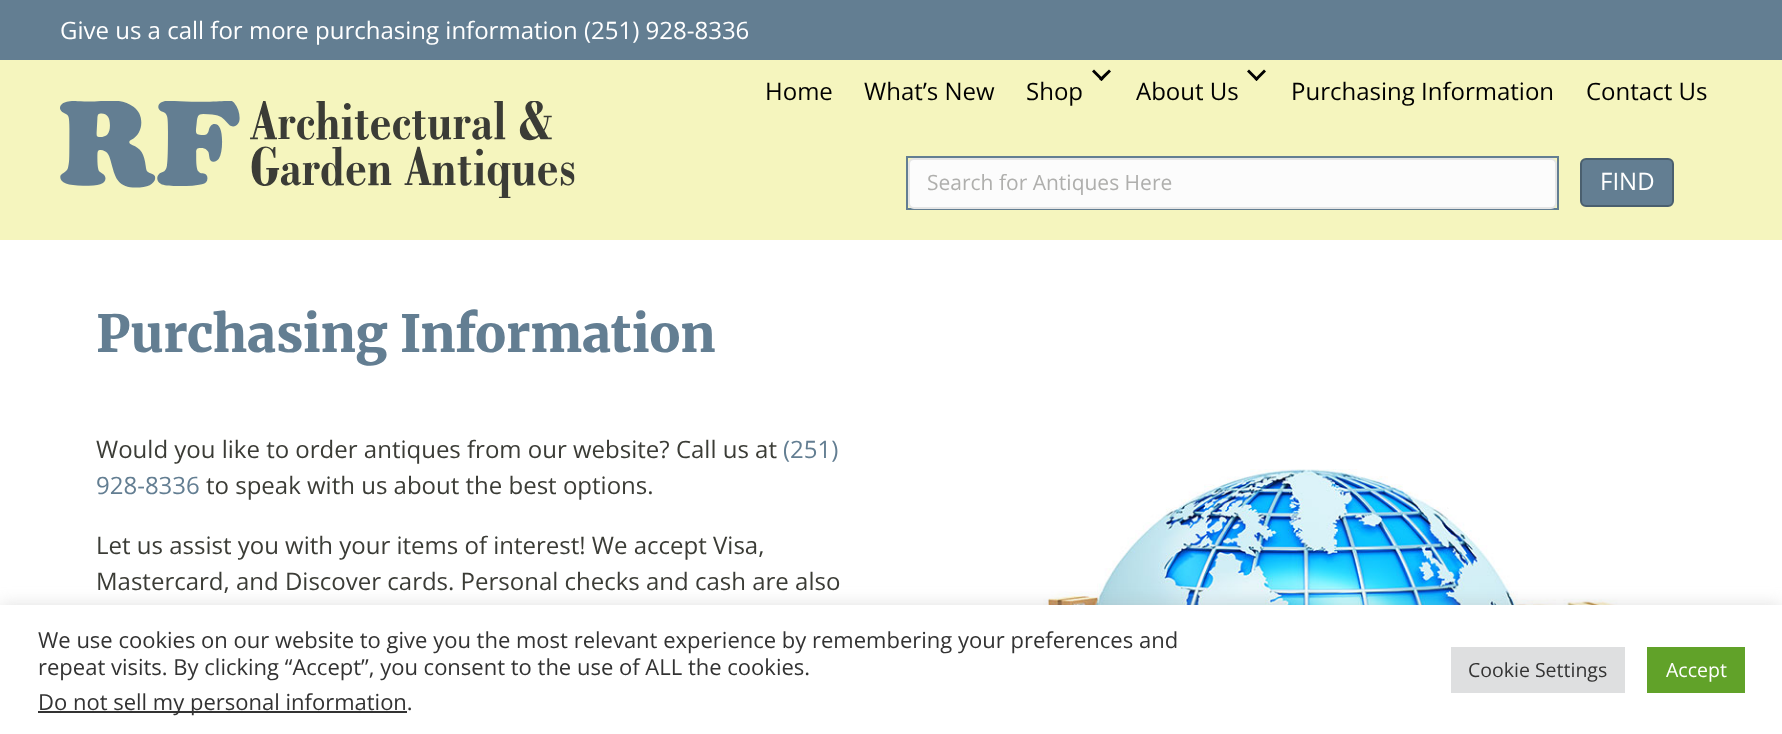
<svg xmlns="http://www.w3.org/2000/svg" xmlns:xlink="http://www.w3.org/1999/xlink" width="1782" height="734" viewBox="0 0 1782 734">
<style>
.cls-1{font:24px Open Sans;fill:#ffffff}
.cls-2{font:24px Open Sans;fill:#000000}
.cls-3{font:21px Open Sans;fill:#afafad}
.cls-4{font:900 51px Merriweather;fill:#637e92}
.cls-5{font:24px Open Sans;fill:#3b3c36}
.cls-6{font:24px Open Sans;fill:#637e92}
.cls-7{font:22px Open Sans;fill:#333333}
.cls-8{font:19.5px Open Sans;fill:#333333}
.cls-9{font:19.5px Open Sans;fill:#ffffff}
</style>
<rect width="100%" height="100%" fill="#ffffff"/>
<rect fill="#637e92" x="0" y="0" width="1782" height="60"/>
<rect fill="#f5f5be" x="0" y="60" width="1782" height="180"/>
<image xlink:href="image0.png" x="60" y="101" width="515" height="97"/>
<path fill="#000000" d="M1109 69.5L1111 71.5L1101.5 81L1099 79Z"/>
<path fill="#000000" d="M1094 69.5L1103.5 79L1101.5 81L1092 71.5Z"/>
<path fill="#000000" d="M1264 69.5L1266 71.5L1256.5 81L1254.5 79Z"/>
<path fill="#000000" d="M1249 69.5L1258.5 79L1256.5 81L1247 71.5Z"/>
<rect fill="none" stroke="#637e92" stroke-width="2" x="907" y="157" width="651" height="52"/>
<rect fill="#fcfcfc" stroke="#e6e6e6" stroke-width="2" x="909" y="159" width="647" height="49" rx="5"/>
<rect fill="#637e92" stroke="#4a5f6e" stroke-width="2" x="1581" y="159" width="92" height="47" rx="5"/>
<image xlink:href="image1.png" x="952" y="469" width="711" height="136"/>
<rect fill="#acabab" fill-opacity="0.3" filter="blur(7.5px)" x="0" y="603" width="1782" height="131"/>
<rect fill="#ffffff" x="0" y="605" width="1782" height="129"/>
<rect fill="#333333" x="38" y="711" width="369" height="2"/>
<rect fill="#dedfe0" x="1451" y="647" width="174" height="46"/>
<rect fill="#61a229" x="1647" y="647" width="98" height="46"/>
<text class="cls-1" x="60" y="39">Give us a call for more purchasing information (251) 928-8336</text>
<text class="cls-2" x="765" y="100">Home</text>
<text class="cls-2" x="864" y="100">What’s New</text>
<text class="cls-2" x="1026" y="100">Shop</text>
<text class="cls-2" x="1136" y="100">About Us</text>
<text class="cls-2" x="1291" y="100">Purchasing Information</text>
<text class="cls-2" x="1586" y="100">Contact Us</text>
<text class="cls-3" x="927" y="190">Search for Antiques Here</text>
<text class="cls-1" x="1600" y="190">FIND</text>
<text class="cls-4" x="96" y="352">Purchasing Information</text>
<text class="cls-5" x="96" y="458">Would you like to order antiques from our website? Call us at</text>
<text class="cls-6" x="783" y="458">(251)</text>
<text class="cls-6" x="96" y="494">928-8336</text>
<text class="cls-5" x="206" y="494">to speak with us about the best options.</text>
<text class="cls-5"><tspan x="96" y="554">Let us assist you with your items of interest! We accept Visa,</tspan><tspan x="96" y="590">Mastercard, and Discover cards. Personal checks and cash are also</tspan></text>
<text class="cls-7"><tspan x="38" y="648">We use cookies on our website to give you the most relevant experience by remembering your preferences and</tspan><tspan x="38" y="675">repeat visits. By clicking “Accept”, you consent to the use of ALL the cookies.</tspan><tspan x="38" y="710">Do not sell my personal information.</tspan></text>
<text class="cls-8" x="1468" y="677">Cookie Settings</text>
<text class="cls-9" x="1666" y="677">Accept</text>
</svg>
